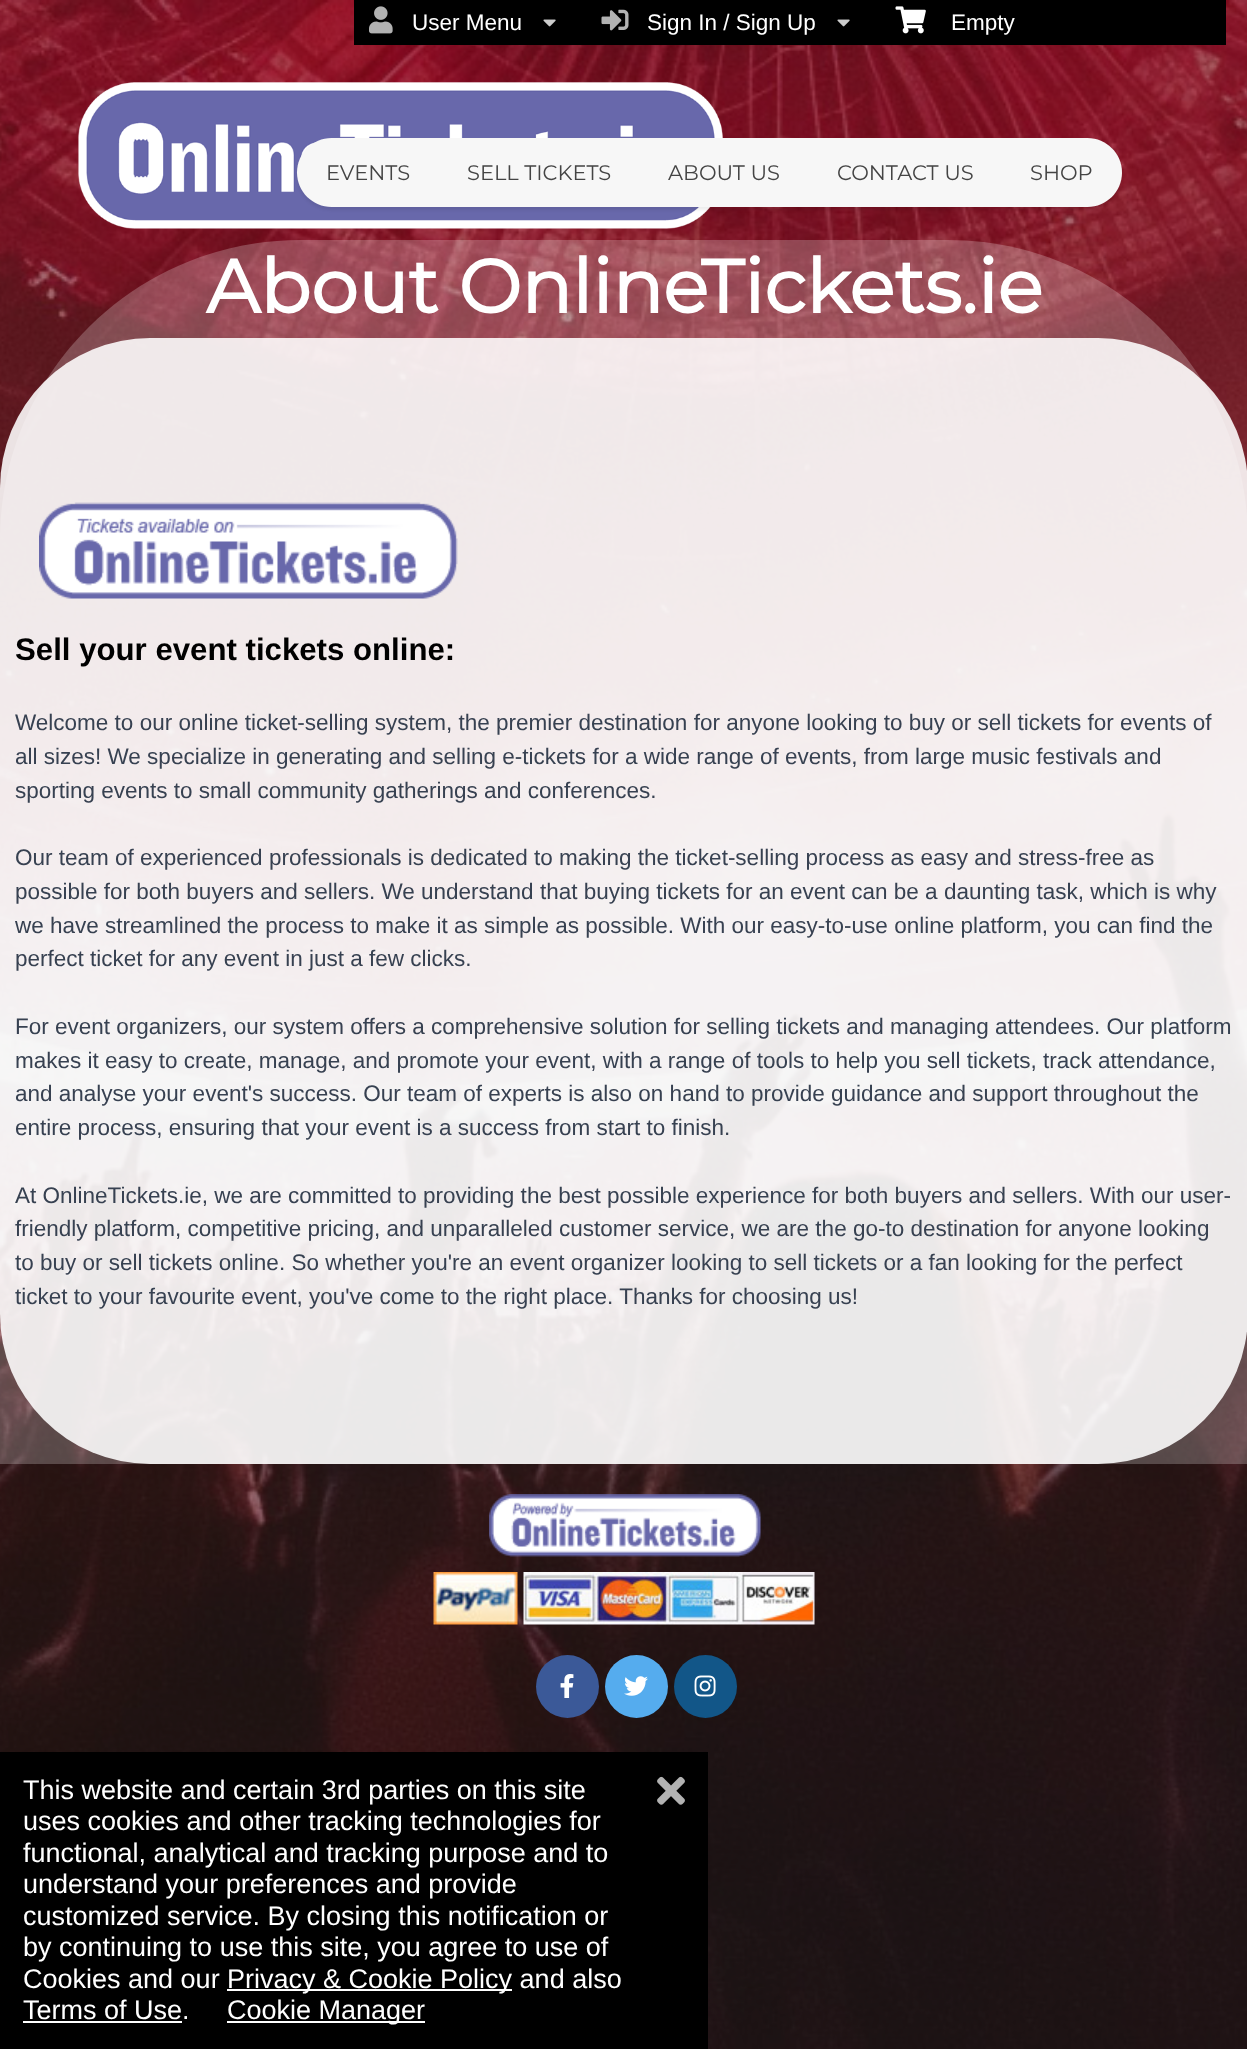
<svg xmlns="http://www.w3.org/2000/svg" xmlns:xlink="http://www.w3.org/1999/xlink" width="1247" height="2049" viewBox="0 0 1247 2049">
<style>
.cls-1{font:22.5px Liberation Sans;fill:#ffffff}
.cls-2{font:100 21px Montserrat;fill:#444444}
.cls-3{font:bold 75px Montserrat;fill:#ffffff}
.cls-4{font:bold 31.2px Liberation Sans;fill:#000000}
.cls-5{font:22.5px Liberation Sans;fill:#374151}
.cls-6{font:27px Liberation Sans;fill:#ffffff}
</style>
<rect width="100%" height="100%" fill="#230e08"/>
<image xlink:href="image0.png" x="0" y="0" width="1247" height="2049"/>
<rect fill="#000000" x="354" y="0" width="872" height="45"/>
<image xlink:href="image1.png" x="369" y="6" width="24" height="28"/>
<image xlink:href="image2.png" x="543" y="19" width="13" height="8"/>
<image xlink:href="image3.png" x="601" y="9" width="28" height="22"/>
<image xlink:href="image2.png" x="837" y="19" width="13" height="8"/>
<image xlink:href="image4.png" x="895" y="6" width="31" height="28"/>
<image xlink:href="image5.png" x="78" y="82" width="645" height="147"/>
<rect fill="#000000" fill-opacity="0.07" filter="blur(1.5px)" x="297" y="141" width="825" height="69" rx="34.5"/>
<path fill="#f7f7f7" d="M331.5 138H438V207H331.5C312.5 207 297 191.5 297 172.5C297 153.5 312.5 138 331.5 138Z"/>
<rect fill="#f7f7f7" x="438" y="138" width="564" height="69"/>
<path fill="#f7f7f7" d="M1002 138H1087.5C1106.5 138 1122 153.5 1122 172.5C1122 191.5 1106.5 207 1087.5 207H1002Z"/>
<path fill="#ffffff" fill-opacity="0.23" d="M300 240H948C1113.5 240 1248 374.5 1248 540V1464H0V540C0 374.5 134.5 240 300 240Z"/>
<rect fill="#ffffff" fill-opacity="0.88" x="0" y="338" width="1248" height="1126" rx="150"/>
<image xlink:href="image6.png" x="39" y="502" width="419" height="97"/>
<image xlink:href="image7.png" x="489" y="1494" width="272" height="63"/>
<image xlink:href="image8.png" x="433" y="1572" width="85" height="53"/>
<image xlink:href="image9.png" x="523" y="1572" width="292" height="53"/>
<circle fill="#3b5998" cx="567.5" cy="1686.5" r="31.5"/>
<image xlink:href="image10.png" x="560" y="1674" width="14" height="24"/>
<circle fill="#55acee" cx="636.5" cy="1686.5" r="31.5"/>
<image xlink:href="image11.png" x="624" y="1676" width="24" height="20"/>
<circle fill="#125688" cx="705.5" cy="1686.5" r="31.5"/>
<image xlink:href="image12.png" x="694" y="1675" width="22" height="22"/>
<rect fill="#000000" x="0" y="1752" width="708" height="297"/>
<image xlink:href="image13.png" x="657" y="1776" width="28" height="29"/>
<rect fill="#ffffff" x="227" y="1989" width="285" height="2"/>
<rect fill="#ffffff" x="23" y="2021" width="159" height="2"/>
<rect fill="#ffffff" x="227" y="2021" width="198" height="2"/>
<text class="cls-1" x="412" y="30">User Menu</text>
<text class="cls-1" x="647" y="30">Sign In / Sign Up</text>
<text class="cls-1" x="951" y="30">Empty</text>
<text class="cls-2" x="326" y="180">EVENTS</text>
<text class="cls-2" x="467" y="180">SELL TICKETS</text>
<text class="cls-2" x="668" y="180">ABOUT US</text>
<text class="cls-2" x="837" y="180">CONTACT US</text>
<text class="cls-2" x="1030" y="180">SHOP</text>
<text class="cls-3" x="206" y="313">About OnlineTickets.ie</text>
<text class="cls-4" x="15" y="660">Sell your event tickets online:</text>
<text class="cls-5"><tspan x="15" y="730">Welcome to our online ticket-selling system, the premier destination for anyone looking to buy or sell tickets for events of</tspan><tspan x="15" y="764">all sizes! We specialize in generating and selling e-tickets for a wide range of events, from large music festivals and</tspan><tspan x="15" y="798">sporting events to small community gatherings and conferences.</tspan></text>
<text class="cls-5"><tspan x="15" y="865">Our team of experienced professionals is dedicated to making the ticket-selling process as easy and stress-free as</tspan><tspan x="15" y="899">possible for both buyers and sellers. We understand that buying tickets for an event can be a daunting task, which is why</tspan><tspan x="15" y="933">we have streamlined the process to make it as simple as possible. With our easy-to-use online platform, you can find the</tspan><tspan x="15" y="966">perfect ticket for any event in just a few clicks.</tspan></text>
<text class="cls-5"><tspan x="15" y="1034">For event organizers, our system offers a comprehensive solution for selling tickets and managing attendees. Our platform</tspan><tspan x="15" y="1068">makes it easy to create, manage, and promote your event, with a range of tools to help you sell tickets, track attendance,</tspan><tspan x="15" y="1101">and analyse your event's success. Our team of experts is also on hand to provide guidance and support throughout the</tspan><tspan x="15" y="1135">entire process, ensuring that your event is a success from start to finish.</tspan></text>
<text class="cls-5"><tspan x="15" y="1203">At OnlineTickets.ie, we are committed to providing the best possible experience for both buyers and sellers. With our user-</tspan><tspan x="15" y="1236">friendly platform, competitive pricing, and unparalleled customer service, we are the go-to destination for anyone looking</tspan><tspan x="15" y="1270">to buy or sell tickets online. So whether you're an event organizer looking to sell tickets or a fan looking for the perfect</tspan><tspan x="15" y="1304">ticket to your favourite event, you've come to the right place. Thanks for choosing us!</tspan></text>
<text class="cls-6"><tspan x="23" y="1799">This website and certain 3rd parties on this site</tspan><tspan x="23" y="1830">uses cookies and other tracking technologies for</tspan><tspan x="23" y="1862">functional, analytical and tracking purpose and to</tspan><tspan x="23" y="1893">understand your preferences and provide</tspan><tspan x="23" y="1925">customized service. By closing this notification or</tspan><tspan x="23" y="1956">by continuing to use this site, you agree to use of</tspan><tspan x="23" y="1988">Cookies and our</tspan></text>
<text class="cls-6" x="227" y="1988">Privacy &amp; Cookie Policy and also</text>
<text class="cls-6" x="23" y="2019">Terms of Use.</text>
<text class="cls-6" x="227" y="2019">Cookie Manager</text>
</svg>
